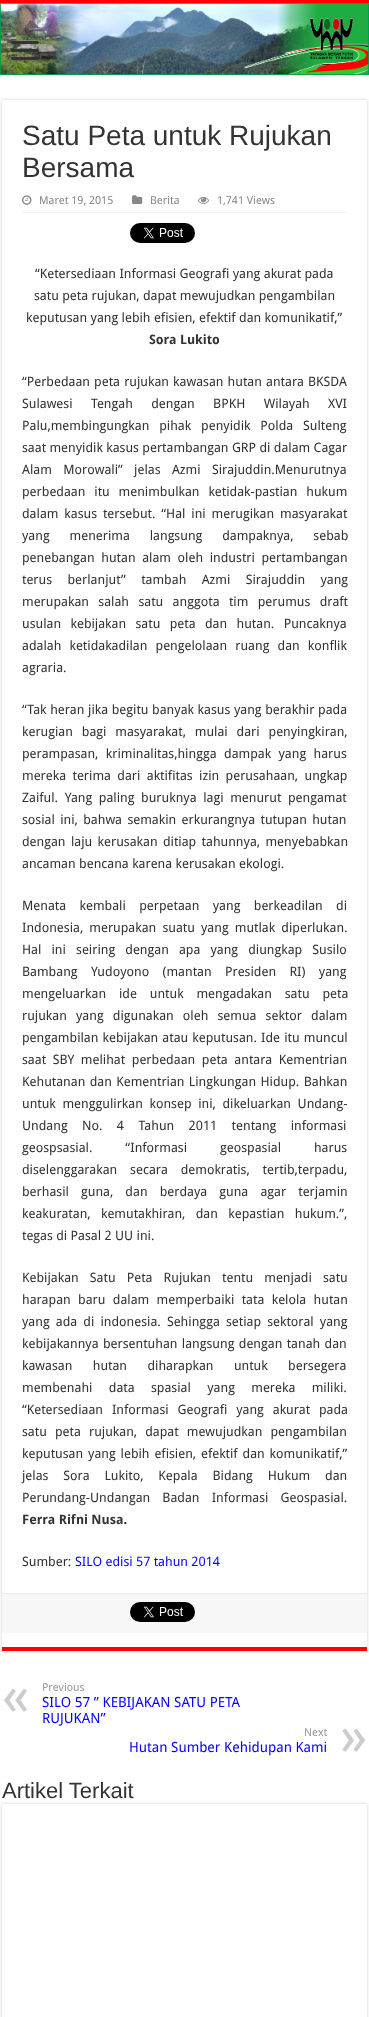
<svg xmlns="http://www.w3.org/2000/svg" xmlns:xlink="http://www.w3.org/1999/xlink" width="369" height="2017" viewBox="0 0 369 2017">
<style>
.cls-1{font:28px Liberation Sans;fill:#333333}
.cls-2{font:11px Droid Sans;fill:#888888}
.cls-3{font:13px Droid Sans;fill:#333333}
.cls-4{font:bold 13px Droid Sans;fill:#333333}
.cls-5{font:13px Droid Sans;fill:#0b03f5}
.cls-6{font:11px Droid Sans;fill:#999999}
.cls-7{font:56px Droid Sans;fill:#cccccc}
.cls-8{font:14px Droid Sans;fill:#0b03f5}
.cls-9{font:22px Liberation Sans;fill:#333333}
</style>
<defs>
<clipPath id="clip1"><path d="M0 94H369V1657H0ZM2 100H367V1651H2Z" clip-rule="evenodd"/></clipPath>
<clipPath id="clip2"><path d="M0 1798H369V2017H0ZM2 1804H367V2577H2Z" clip-rule="evenodd"/></clipPath>
</defs>
<rect width="100%" height="100%" fill="#ffffff"/>
<rect fill="#cacaca" filter="blur(1.5px)" x="0" y="0" width="369" height="75"/>
<rect fill="#ff0000" x="0" y="0" width="369" height="3"/>
<image xlink:href="image0.png" x="0" y="3" width="369" height="72"/>
<rect fill="#333333" x="11" y="41" width="28" height="3" rx="1.5"/>
<rect fill="#333333" x="11" y="49" width="28" height="3" rx="1.5"/>
<rect fill="#333333" x="11" y="57" width="28" height="3" rx="1.5"/>
<g clip-path="url(#clip1)">
<rect fill="#cacaca" filter="blur(1.5px)" x="2" y="100" width="365" height="1551"/>
</g>
<rect fill="#ff0000" x="2" y="1647" width="365" height="4"/>
<rect fill="#f2f2f2" x="22" y="212" width="325" height="1"/>
<image xlink:href="image1.png" x="22" y="195" width="10" height="10"/>
<image xlink:href="image2.png" x="132" y="195" width="11" height="9"/>
<image xlink:href="image3.png" x="198" y="196" width="11" height="8"/>
<image xlink:href="image4.png" x="130" y="223" width="65" height="20"/>
<rect fill="#f7f7f7" x="2" y="1594" width="365" height="39"/>
<rect fill="#eaeaea" x="2" y="1593" width="365" height="1"/>
<image xlink:href="image5.png" x="130" y="1602" width="65" height="20"/>
<g clip-path="url(#clip2)">
<rect fill="#cacaca" filter="blur(1.5px)" x="2" y="1804" width="365" height="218"/>
</g>
<text class="cls-1"><tspan x="22" y="145">Satu Peta untuk Rujukan</tspan><tspan x="22" y="177">Bersama</tspan></text>
<text class="cls-2" x="39" y="204">Maret 19, 2015</text>
<text class="cls-2" x="150" y="204">Berita</text>
<text class="cls-2" x="217" y="204">1,741 Views</text>
<text class="cls-3" x="35" y="278">“Ketersediaan Informasi Geografi yang akurat pada</text>
<text class="cls-3" x="34" y="300">satu peta rujukan, dapat mewujudkan pengambilan</text>
<text class="cls-3" x="26" y="322">keputusan yang lebih efisien, efektif dan komunikatif,”</text>
<text class="cls-4" x="149" y="344">Sora Lukito</text>
<text class="cls-3"><tspan x="22" y="386" word-spacing="0.75">“Perbedaan peta rujukan kawasan hutan antara BKSDA</tspan><tspan x="22" y="408" word-spacing="15">Sulawesi Tengah dengan BPKH Wilayah XVI</tspan><tspan x="22" y="430" word-spacing="6.5">Palu,membingungkan pihak penyidik Polda Sulteng</tspan><tspan x="22" y="452">saat menyidik kasus pertambangan GRP di dalam Cagar</tspan><tspan x="22" y="474" word-spacing="8">Alam Morowali” jelas Azmi Sirajuddin.Menurutnya</tspan><tspan x="22" y="496" word-spacing="5.5">perbedaan itu menimbulkan ketidak-pastian hukum</tspan><tspan x="22" y="518" word-spacing="2.5">dalam kasus tersebut. “Hal ini merugikan masyarakat</tspan><tspan x="22" y="540" word-spacing="16.5">yang menerima langsung dampaknya, sebab</tspan><tspan x="22" y="562" word-spacing="3.25">penebangan hutan alam oleh industri pertambangan</tspan><tspan x="22" y="584" word-spacing="12">terus berlanjut” tambah Azmi Sirajuddin yang</tspan><tspan x="22" y="606" word-spacing="6">merupakan salah satu anggota tim perumus draft</tspan><tspan x="22" y="628" word-spacing="6">usulan kebijakan satu peta dan hutan. Puncaknya</tspan><tspan x="22" y="650" word-spacing="4.75">adalah ketidakadilan pengelolaan ruang dan konflik</tspan><tspan x="22" y="672">agraria.</tspan></text>
<text class="cls-3"><tspan x="22" y="714" word-spacing="0.25">“Tak heran jika begitu banyak kasus yang berakhir pada</tspan><tspan x="22" y="736" word-spacing="5.5">kerugian bagi masyarakat, mulai dari penyingkiran,</tspan><tspan x="22" y="758" word-spacing="4">perampasan, kriminalitas,hingga dampak yang harus</tspan><tspan x="22" y="780" word-spacing="3">mereka terima dari aktifitas izin perusahaan, ungkap</tspan><tspan x="22" y="802" word-spacing="3.25">Zaiful. Yang paling buruknya lagi menurut pengamat</tspan><tspan x="22" y="824" word-spacing="2">sosial ini, bahwa semakin erkurangnya tutupan hutan</tspan><tspan x="22" y="846" word-spacing="2">dengan laju kerusakan ditiap tahunnya, menyebabkan</tspan><tspan x="22" y="868">ancaman bencana karena kerusakan ekologi.</tspan></text>
<text class="cls-3"><tspan x="22" y="910" word-spacing="10">Menata kembali perpetaan yang berkeadilan di</tspan><tspan x="22" y="932" word-spacing="2.75">Indonesia, merupakan suatu yang mutlak diperlukan.</tspan><tspan x="22" y="954" word-spacing="6.75">Hal ini seiring dengan apa yang diungkap Susilo</tspan><tspan x="22" y="976" word-spacing="10">Bambang Yudoyono (mantan Presiden RI) yang</tspan><tspan x="22" y="998" word-spacing="9.5">mengeluarkan ide untuk mengadakan satu peta</tspan><tspan x="22" y="1020" word-spacing="5.75">rujukan yang digunakan oleh semua sektor dalam</tspan><tspan x="22" y="1042" word-spacing="0.75">pengambilan kebijakan atau keputusan. Ide itu muncul</tspan><tspan x="22" y="1064" word-spacing="3.25">saat SBY melihat perbedaan peta antara Kementrian</tspan><tspan x="22" y="1086" word-spacing="1">Kehutanan dan Kementrian Lingkungan Hidup. Bahkan</tspan><tspan x="22" y="1108" word-spacing="3.25">untuk menggulirkan konsep ini, dikeluarkan Undang-</tspan><tspan x="22" y="1130" word-spacing="11">Undang No. 4 Tahun 2011 tentang informasi</tspan><tspan x="22" y="1152" word-spacing="29.5">geospsasial. “Informasi geospasial harus</tspan><tspan x="22" y="1174" word-spacing="9.5">diselenggarakan secara demokratis, tertib,terpadu,</tspan><tspan x="22" y="1196" word-spacing="8.75">berhasil guna, dan berdaya guna agar terjamin</tspan><tspan x="22" y="1218" word-spacing="7">keakuratan, kemutakhiran, dan kepastian hukum.”,</tspan><tspan x="22" y="1240">tegas di Pasal 2 UU ini.</tspan></text>
<text class="cls-3"><tspan x="22" y="1282" word-spacing="7.75">Kebijakan Satu Peta Rujukan tentu menjadi satu</tspan><tspan x="22" y="1304" word-spacing="4">harapan baru dalam memperbaiki tata kelola hutan</tspan><tspan x="22" y="1326" word-spacing="2.75">yang ada di indonesia. Sehingga setiap sektoral yang</tspan><tspan x="22" y="1348" word-spacing="1">kebijakannya bersentuhan langsung dengan tanah dan</tspan><tspan x="22" y="1370" word-spacing="17">kawasan hutan diharapkan untuk bersegera</tspan><tspan x="22" y="1392" word-spacing="13">membenahi data spasial yang mereka miliki.</tspan><tspan x="22" y="1414" word-spacing="5.5">“Ketersediaan Informasi Geografi yang akurat pada</tspan><tspan x="22" y="1436" word-spacing="4.75">satu peta rujukan, dapat mewujudkan pengambilan</tspan><tspan x="22" y="1458" word-spacing="1.5">keputusan yang lebih efisien, efektif dan komunikatif,”</tspan><tspan x="22" y="1480" word-spacing="11.5">jelas Sora Lukito, Kepala Bidang Hukum dan</tspan><tspan x="22" y="1502" word-spacing="8.75">Perundang-Undangan Badan Informasi Geospasial.</tspan></text>
<text class="cls-4" x="22" y="1524">Ferra Rifni Nusa.</text>
<text class="cls-3" x="22" y="1566">Sumber:</text>
<text class="cls-5" x="75" y="1566">SILO edisi 57 tahun 2014</text>
<text class="cls-6" x="42" y="1691">Previous</text>
<text class="cls-7" x="2" y="1715">«</text>
<text class="cls-8"><tspan x="42" y="1707">SILO 57 ” KEBIJAKAN SATU PETA</tspan><tspan x="42" y="1723">RUJUKAN”</tspan></text>
<text class="cls-6" x="304" y="1736">Next</text>
<text class="cls-7" x="340" y="1755">»</text>
<text class="cls-8" x="129" y="1752">Hutan Sumber Kehidupan Kami</text>
<text class="cls-9" x="2" y="1798">Artikel Terkait</text>
</svg>
